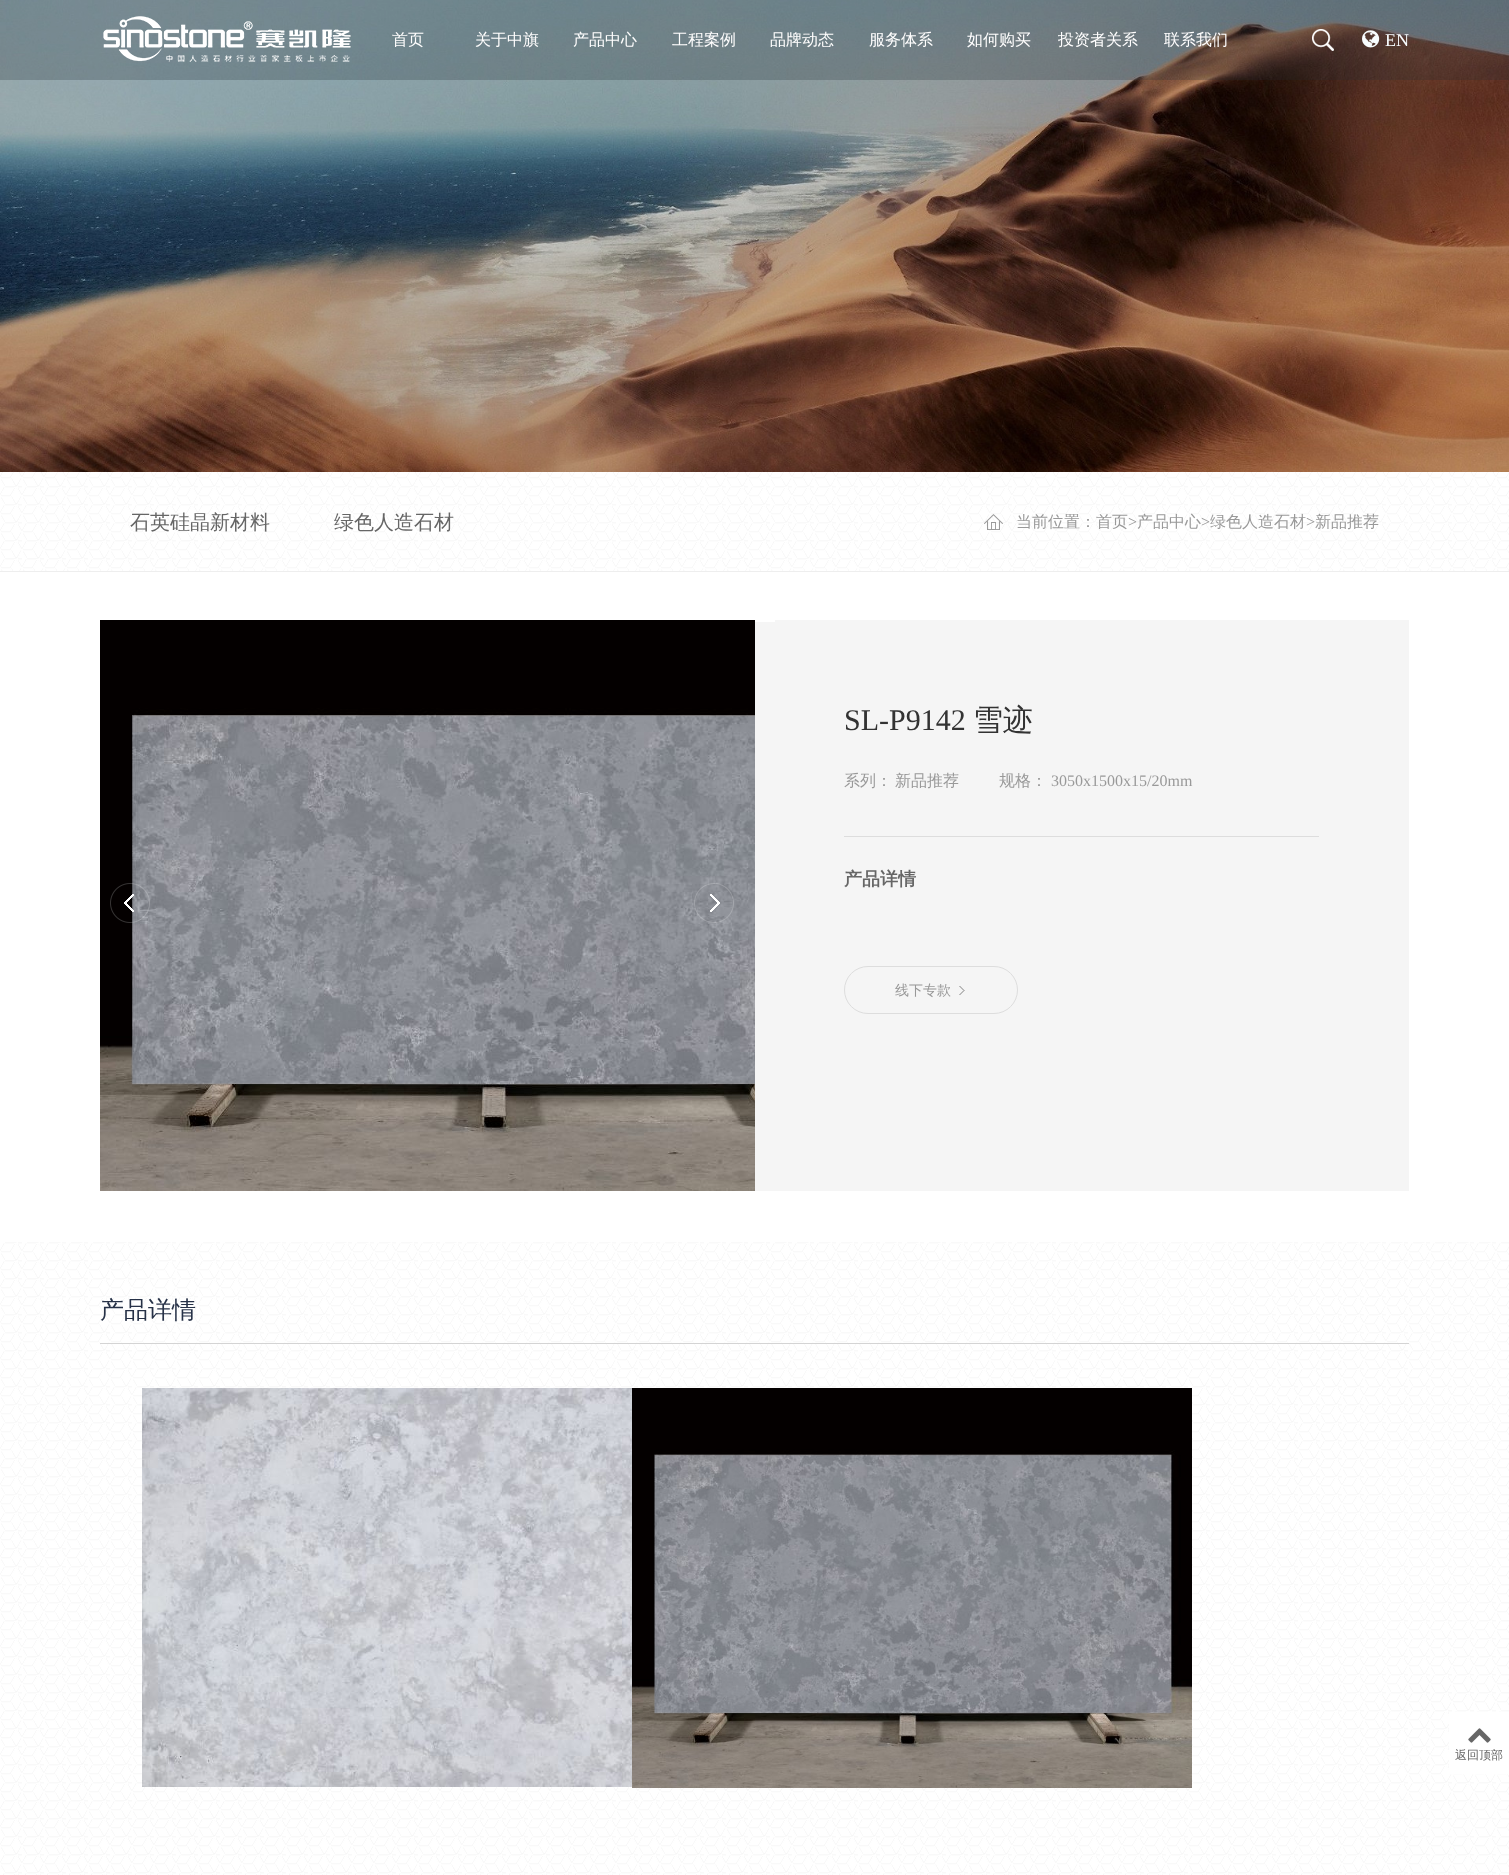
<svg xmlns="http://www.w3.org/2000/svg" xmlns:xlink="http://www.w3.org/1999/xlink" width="1509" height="1875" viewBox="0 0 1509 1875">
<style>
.cls-1{font:500 16px WenQuanYi Zen Hei;fill:#fffefe}
.cls-2{font:18px Liberation Serif;fill:#f8fdff}
.cls-3{font:500 20px WenQuanYi Zen Hei;fill:#666666}
.cls-4{font:500 16px WenQuanYi Zen Hei;fill:#999999}
.cls-5{font:16px Liberation Serif;fill:#999999}
.cls-6{font:30px Liberation Serif;fill:#333333}
.cls-7{font:500 30px WenQuanYi Zen Hei;fill:#333333}
.cls-8{font:bold 18px WenQuanYi Zen Hei;fill:#666666}
.cls-9{font:500 14px WenQuanYi Zen Hei;fill:#999999}
.cls-10{font:500 24px WenQuanYi Zen Hei;fill:#263147}
.cls-11{font:500 12px WenQuanYi Zen Hei;fill:#666666}
</style>
<rect width="100%" height="100%" fill="#ffffff"/>
<image xlink:href="image0.png" x="0" y="472" width="1509" height="1403"/>
<image xlink:href="image1.png" x="0" y="0" width="1509" height="472"/>
<rect fill="#202b33" fill-opacity="0.25" x="0" y="0" width="1509" height="80"/>
<image xlink:href="image2.png" x="103" y="16" width="248" height="46"/>
<image xlink:href="image3.png" x="1312" y="29" width="22" height="22"/>
<image xlink:href="image4.png" x="1362" y="30" width="18" height="18"/>
<rect fill="#eeeeee" x="0" y="571" width="1509" height="1"/>
<image xlink:href="image5.png" x="984" y="514" width="19" height="16"/>
<rect fill="#ffffff" x="0" y="572" width="1509" height="670"/>
<rect fill="#f5f5f5" x="755" y="620" width="654" height="571"/>
<rect fill="#ffffff" x="755" y="620" width="20" height="2"/>
<image xlink:href="image6.png" x="100" y="620" width="655" height="571"/>
<image xlink:href="image7.png" x="110" y="883" width="40" height="40"/>
<image xlink:href="image8.png" x="694" y="883" width="40" height="40"/>
<rect fill="#dddddd" x="844" y="836" width="475" height="1"/>
<rect fill="none" stroke="#dddddd" x="844.5" y="966.5" width="173" height="47" rx="23.5"/>
<image xlink:href="image9.png" x="959" y="986" width="6" height="9"/>
<rect fill="#d4d4d4" x="100" y="1343" width="1309" height="1"/>
<image xlink:href="image10.png" x="142" y="1388" width="490" height="399"/>
<image xlink:href="image11.png" x="632" y="1388" width="560" height="400"/>
<rect fill="#ffffff" x="1449" y="1712" width="60" height="62"/>
<image xlink:href="image12.png" x="1468" y="1728" width="23" height="15"/>
<text class="cls-1" x="392" y="45">首页</text>
<text class="cls-1" x="475" y="45">关于中旗</text>
<text class="cls-1" x="573" y="45">产品中心</text>
<text class="cls-1" x="672" y="45">工程案例</text>
<text class="cls-1" x="770" y="45">品牌动态</text>
<text class="cls-1" x="869" y="45">服务体系</text>
<text class="cls-1" x="967" y="45">如何购买</text>
<text class="cls-1" x="1058" y="45">投资者关系</text>
<text class="cls-1" x="1164" y="45">联系我们</text>
<text class="cls-2" x="1385" y="46">EN</text>
<text class="cls-3" x="130" y="529">石英硅晶新材料</text>
<text class="cls-3" x="334" y="529">绿色人造石材</text>
<text class="cls-4" x="1016" y="527">当前位置：首页</text>
<text class="cls-5" x="1128" y="527">&gt;</text>
<text class="cls-4" x="1137" y="527">产品中心</text>
<text class="cls-5" x="1201" y="527">&gt;</text>
<text class="cls-4" x="1210" y="527">绿色人造石材</text>
<text class="cls-5" x="1306" y="527">&gt;</text>
<text class="cls-4" x="1315" y="527">新品推荐</text>
<text class="cls-6" x="844" y="730">SL-P9142</text>
<text class="cls-7" x="973" y="730">雪迹</text>
<text class="cls-4" x="844" y="786">系列：</text>
<text class="cls-4" x="895" y="786">新品推荐</text>
<text class="cls-4" x="999" y="786">规格：</text>
<text class="cls-5" x="1051" y="786">3050x1500x15/20mm</text>
<text class="cls-8" x="844" y="885">产品详情</text>
<text class="cls-9" x="895" y="995">线下专款</text>
<text class="cls-10" x="100" y="1318">产品详情</text>
<text class="cls-11" x="1455" y="1759">返回顶部</text>
</svg>
